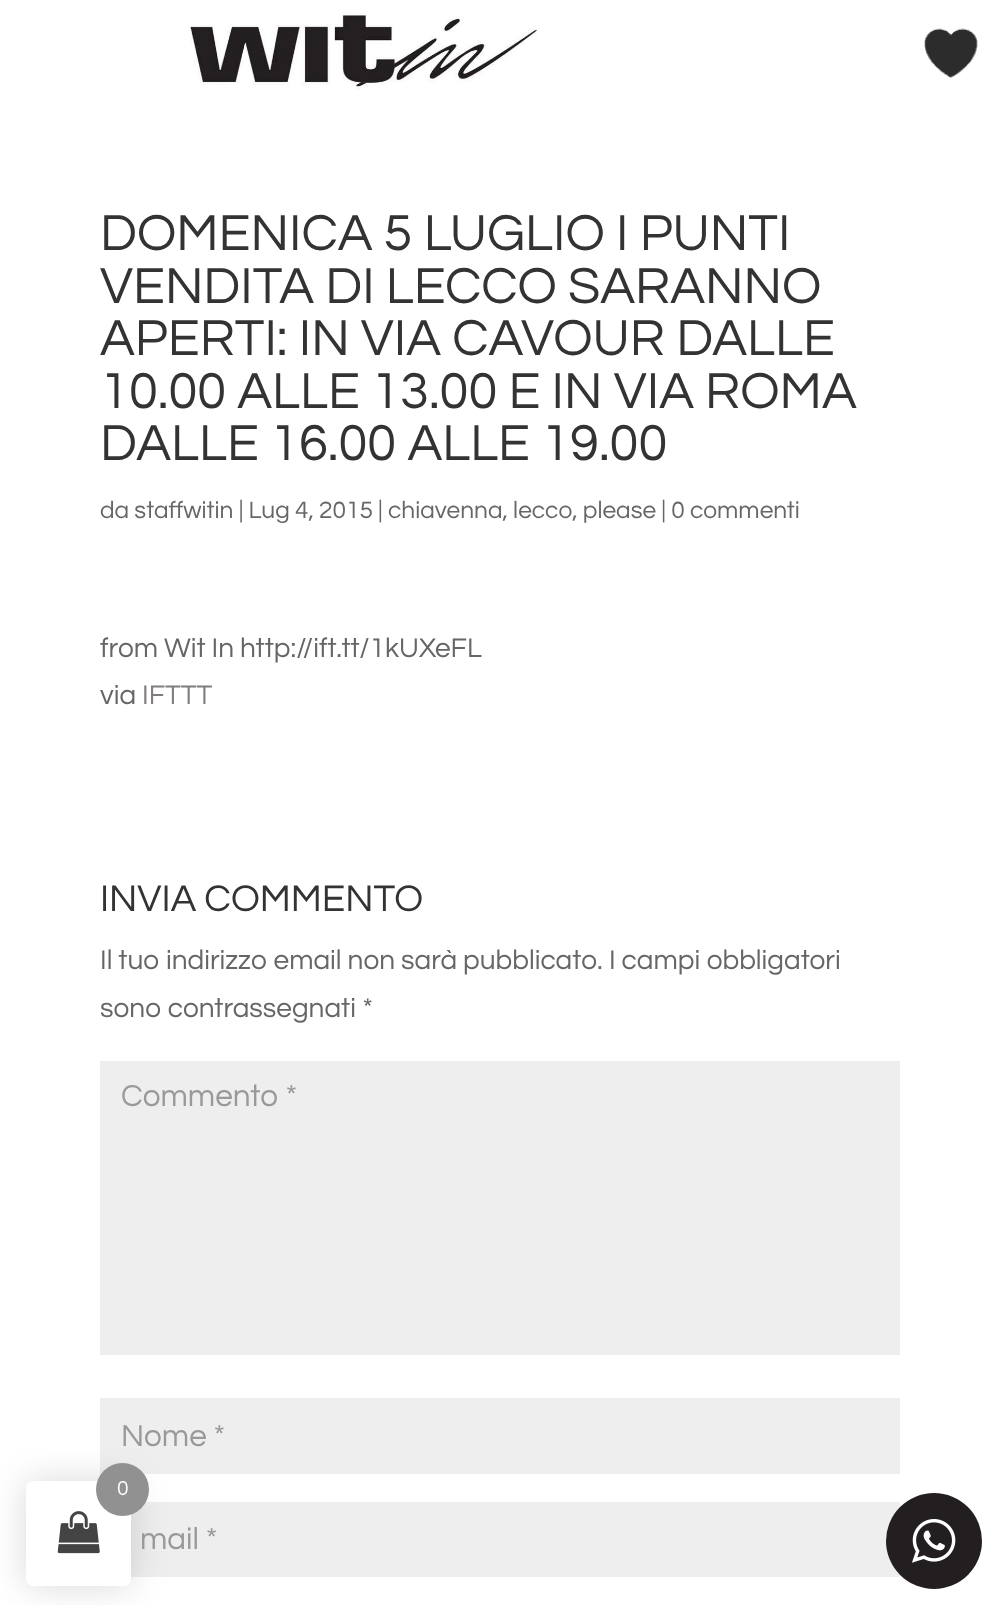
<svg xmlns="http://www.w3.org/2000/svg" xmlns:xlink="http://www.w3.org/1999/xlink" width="999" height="1605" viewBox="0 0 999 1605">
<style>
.cls-1{font:52.5px Questrial;fill:#333333}
.cls-2{font:24.5px Questrial;fill:#666666}
.cls-3{font:28px Questrial;fill:#666666}
.cls-4{font:28px Questrial;fill:#827d7d}
.cls-5{font:38.5px Questrial;fill:#333333}
.cls-6{font:31.5px Questrial;fill:#999999}
.cls-7{font:21px Questrial;fill:#ffffff}
</style>
<rect width="100%" height="100%" fill="#ffffff"/>
<image xlink:href="image0.png" x="190" y="11" width="347" height="79"/>
<image xlink:href="image1.png" x="924" y="28" width="54" height="50"/>
<rect fill="#eeeeee" x="100" y="1061" width="800" height="294"/>
<rect fill="#eeeeee" x="100" y="1398" width="800" height="76"/>
<rect fill="#eeeeee" x="131" y="1502" width="769" height="75"/>
<rect fill="#000000" fill-opacity="0.15" filter="blur(17.5px)" x="26" y="1481" width="105" height="105" rx="7"/>
<rect fill="#ffffff" x="26" y="1481" width="105" height="105" rx="7"/>
<image xlink:href="image2.png" x="57" y="1511" width="43" height="43"/>
<circle fill="#919191" cx="122.5" cy="1489.5" r="26.5"/>
<circle fill="#231f20" cx="934" cy="1541" r="48"/>
<image xlink:href="image3.png" x="912" y="1519" width="44" height="44"/>
<text class="cls-1"><tspan x="100" y="250">DOMENICA 5 LUGLIO I PUNTI</tspan><tspan x="100" y="303">VENDITA DI LECCO SARANNO</tspan><tspan x="100" y="355">APERTI: IN VIA CAVOUR DALLE</tspan><tspan x="100" y="408">10.00 ALLE 13.00 E IN VIA ROMA</tspan><tspan x="100" y="460">DALLE 16.00 ALLE 19.00</tspan></text>
<text class="cls-2" x="100" y="518">da staffwitin | Lug 4, 2015 | chiavenna, lecco, please | 0 commenti</text>
<text class="cls-3"><tspan x="100" y="657">from Wit In http://ift.tt/1kUXeFL</tspan><tspan x="100" y="704">via</tspan></text>
<text class="cls-4" x="142" y="704">IFTTT</text>
<text class="cls-5" x="100" y="911">INVIA COMMENTO</text>
<text class="cls-3" x="100" y="969">Il tuo indirizzo email non sarà pubblicato.</text>
<text class="cls-3" x="609" y="969">I campi obbligatori</text>
<text class="cls-3" x="100" y="1017">sono contrassegnati *</text>
<text class="cls-6" x="121" y="1106">Commento *</text>
<text class="cls-6" x="121" y="1446">Nome *</text>
<text class="cls-6" x="140" y="1549">mail *</text>
<text class="cls-7" x="117" y="1495">0</text>
</svg>
